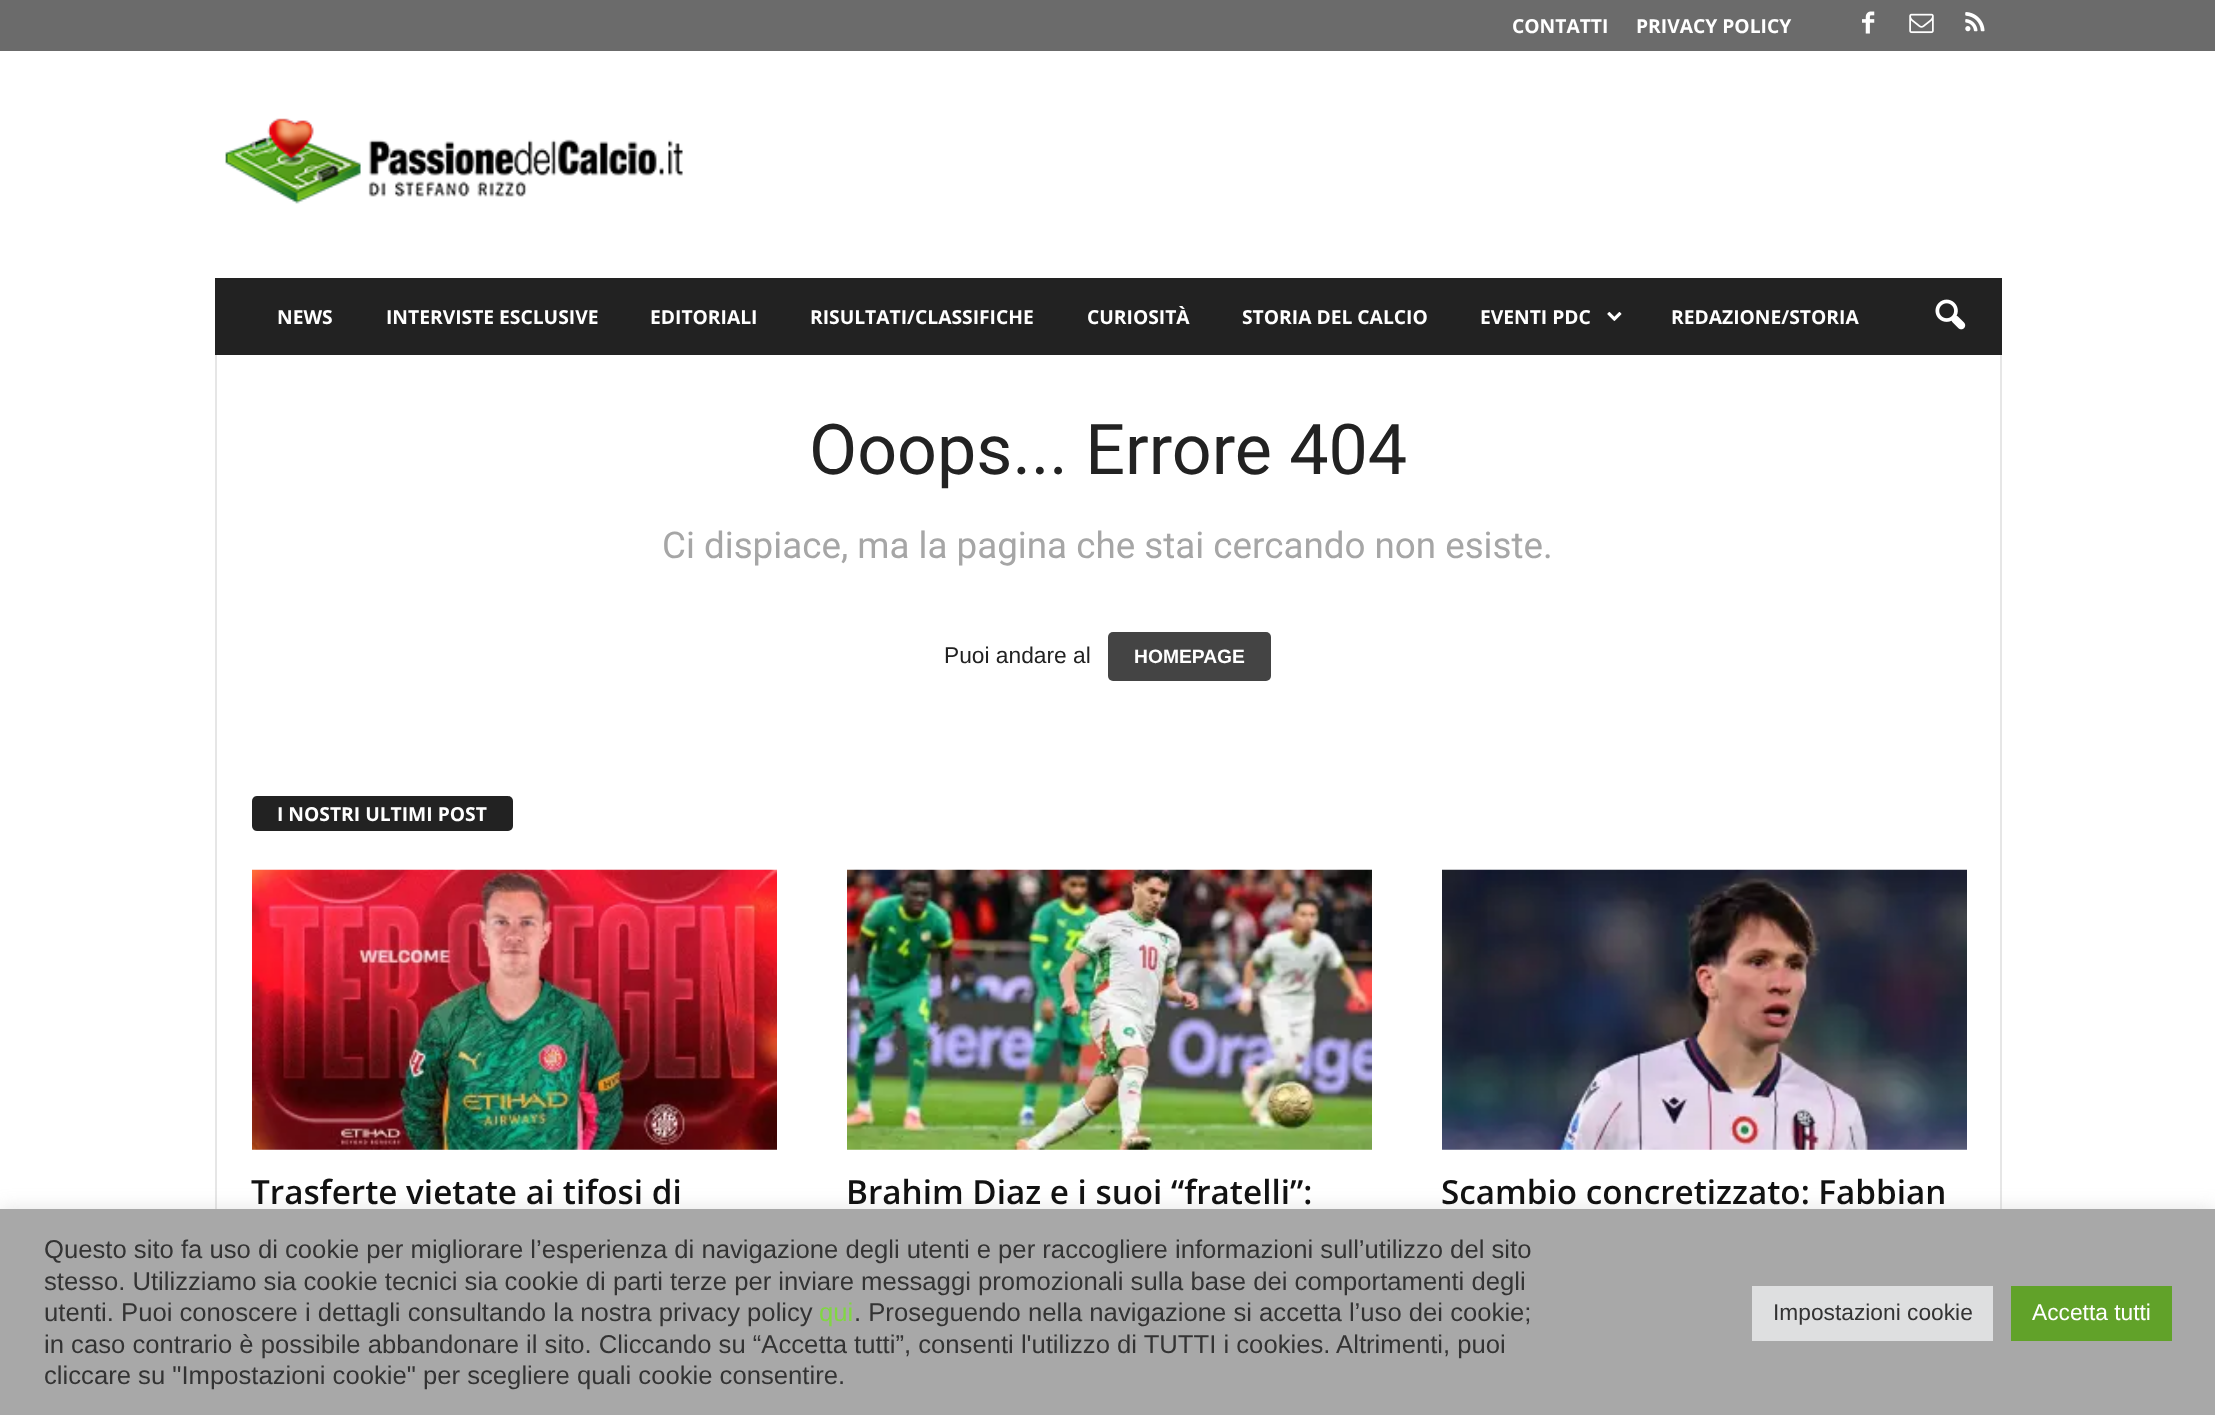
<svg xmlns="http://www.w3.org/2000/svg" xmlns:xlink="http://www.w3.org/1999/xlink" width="2215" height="1415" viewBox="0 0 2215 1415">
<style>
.cls-1{font:bold 19.25px Open Sans;fill:#ffffff}
.cls-2{font:70px Roboto;fill:#222222}
.cls-3{font:36.75px Roboto;fill:#a6a6a6}
.cls-4{font:22.75px Liberation Sans;fill:#222222}
.cls-5{font:bold 19.25px Liberation Sans;fill:#ffffff}
.cls-6{font:600 33.25px Open Sans;fill:#111111}
.cls-7{font:25.67px Liberation Sans;fill:#333333}
.cls-8{font:25.67px Liberation Sans;fill:#81d742}
.cls-9{font:22.75px Liberation Sans;fill:#333333}
.cls-10{font:22.75px Liberation Sans;fill:#ffffff}
</style>
<rect width="100%" height="100%" fill="#ffffff"/>
<rect fill="#6b6b6b" x="0" y="0" width="2215" height="51"/>
<image xlink:href="image0.png" x="1862" y="11" width="13" height="23"/>
<image xlink:href="image1.png" x="1909" y="13" width="25" height="21"/>
<image xlink:href="image2.png" x="1965" y="12" width="20" height="20"/>
<image xlink:href="image3.png" x="225" y="118" width="458" height="86"/>
<rect fill="#222222" x="215" y="278" width="1787" height="77"/>
<image xlink:href="image4.png" x="1607" y="312" width="15" height="9"/>
<image xlink:href="image5.png" x="1935" y="299" width="31" height="31"/>
<rect fill="#e6e6e6" x="215" y="355" width="2" height="854"/>
<rect fill="#444444" x="1108" y="632" width="163" height="49" rx="5"/>
<rect fill="#222222" x="252" y="796" width="261" height="35" rx="5"/>
<image xlink:href="image6.png" x="252" y="869" width="525" height="281"/>
<image xlink:href="image7.png" x="847" y="869" width="525" height="281"/>
<image xlink:href="image8.png" x="1442" y="869" width="525" height="281"/>
<rect fill="#e6e6e6" x="2000" y="355" width="2" height="854"/>
<rect fill="#acabab" fill-opacity="0.3" filter="blur(9px)" x="0" y="1208" width="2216" height="206"/>
<rect fill="#a8a8a8" x="0" y="1209" width="2215" height="206"/>
<rect fill="#dedfe0" x="1752" y="1286" width="241" height="55"/>
<rect fill="#61a229" x="2011" y="1286" width="161" height="55"/>
<text class="cls-1" x="1512" y="33">CONTATTI</text>
<text class="cls-1" x="1636" y="33">PRIVACY POLICY</text>
<text class="cls-1" x="277" y="324">NEWS</text>
<text class="cls-1" x="386" y="324">INTERVISTE ESCLUSIVE</text>
<text class="cls-1" x="650" y="324">EDITORIALI</text>
<text class="cls-1" x="810" y="324">RISULTATI/CLASSIFICHE</text>
<text class="cls-1" x="1087" y="324">CURIOSITÀ</text>
<text class="cls-1" x="1242" y="324">STORIA DEL CALCIO</text>
<text class="cls-1" x="1480" y="324">EVENTI PDC</text>
<text class="cls-1" x="1671" y="324">REDAZIONE/STORIA</text>
<text class="cls-2" x="809" y="474">Ooops... Errore 404</text>
<text class="cls-3" x="662" y="558">Ci dispiace, ma la pagina che stai cercando non esiste.</text>
<text class="cls-4" x="944" y="663">Puoi andare al</text>
<text class="cls-5" x="1134" y="663">HOMEPAGE</text>
<text class="cls-1" x="277" y="821">I NOSTRI ULTIMI POST</text>
<text class="cls-6" x="251" y="1204">Trasferte vietate ai tifosi di</text>
<text class="cls-6" x="846" y="1204">Brahim Diaz e i suoi “fratelli”:</text>
<text class="cls-6" x="1441" y="1204">Scambio concretizzato: Fabbian</text>
<text class="cls-7"><tspan x="44" y="1258">Questo sito fa uso di cookie per migliorare l’esperienza di navigazione degli utenti e per raccogliere informazioni sull’utilizzo del sito</tspan><tspan x="44" y="1290">stesso. Utilizziamo sia cookie tecnici sia cookie di parti terze per inviare messaggi promozionali sulla base dei comportamenti degli</tspan><tspan x="44" y="1321">utenti. Puoi conoscere i dettagli consultando la nostra privacy policy</tspan></text>
<text class="cls-8" x="819" y="1321">qui</text>
<text class="cls-7" x="854" y="1321">. Proseguendo nella navigazione si accetta l’uso dei cookie;</text>
<text class="cls-7"><tspan x="44" y="1353">in caso contrario è possibile abbandonare il sito. Cliccando su “Accetta tutti”, consenti l'utilizzo di TUTTI i cookies. Altrimenti, puoi</tspan><tspan x="44" y="1384">cliccare su "Impostazioni cookie" per scegliere quali cookie consentire.</tspan></text>
<text class="cls-9" x="1773" y="1320">Impostazioni cookie</text>
<text class="cls-10" x="2032" y="1320">Accetta tutti</text>
</svg>
